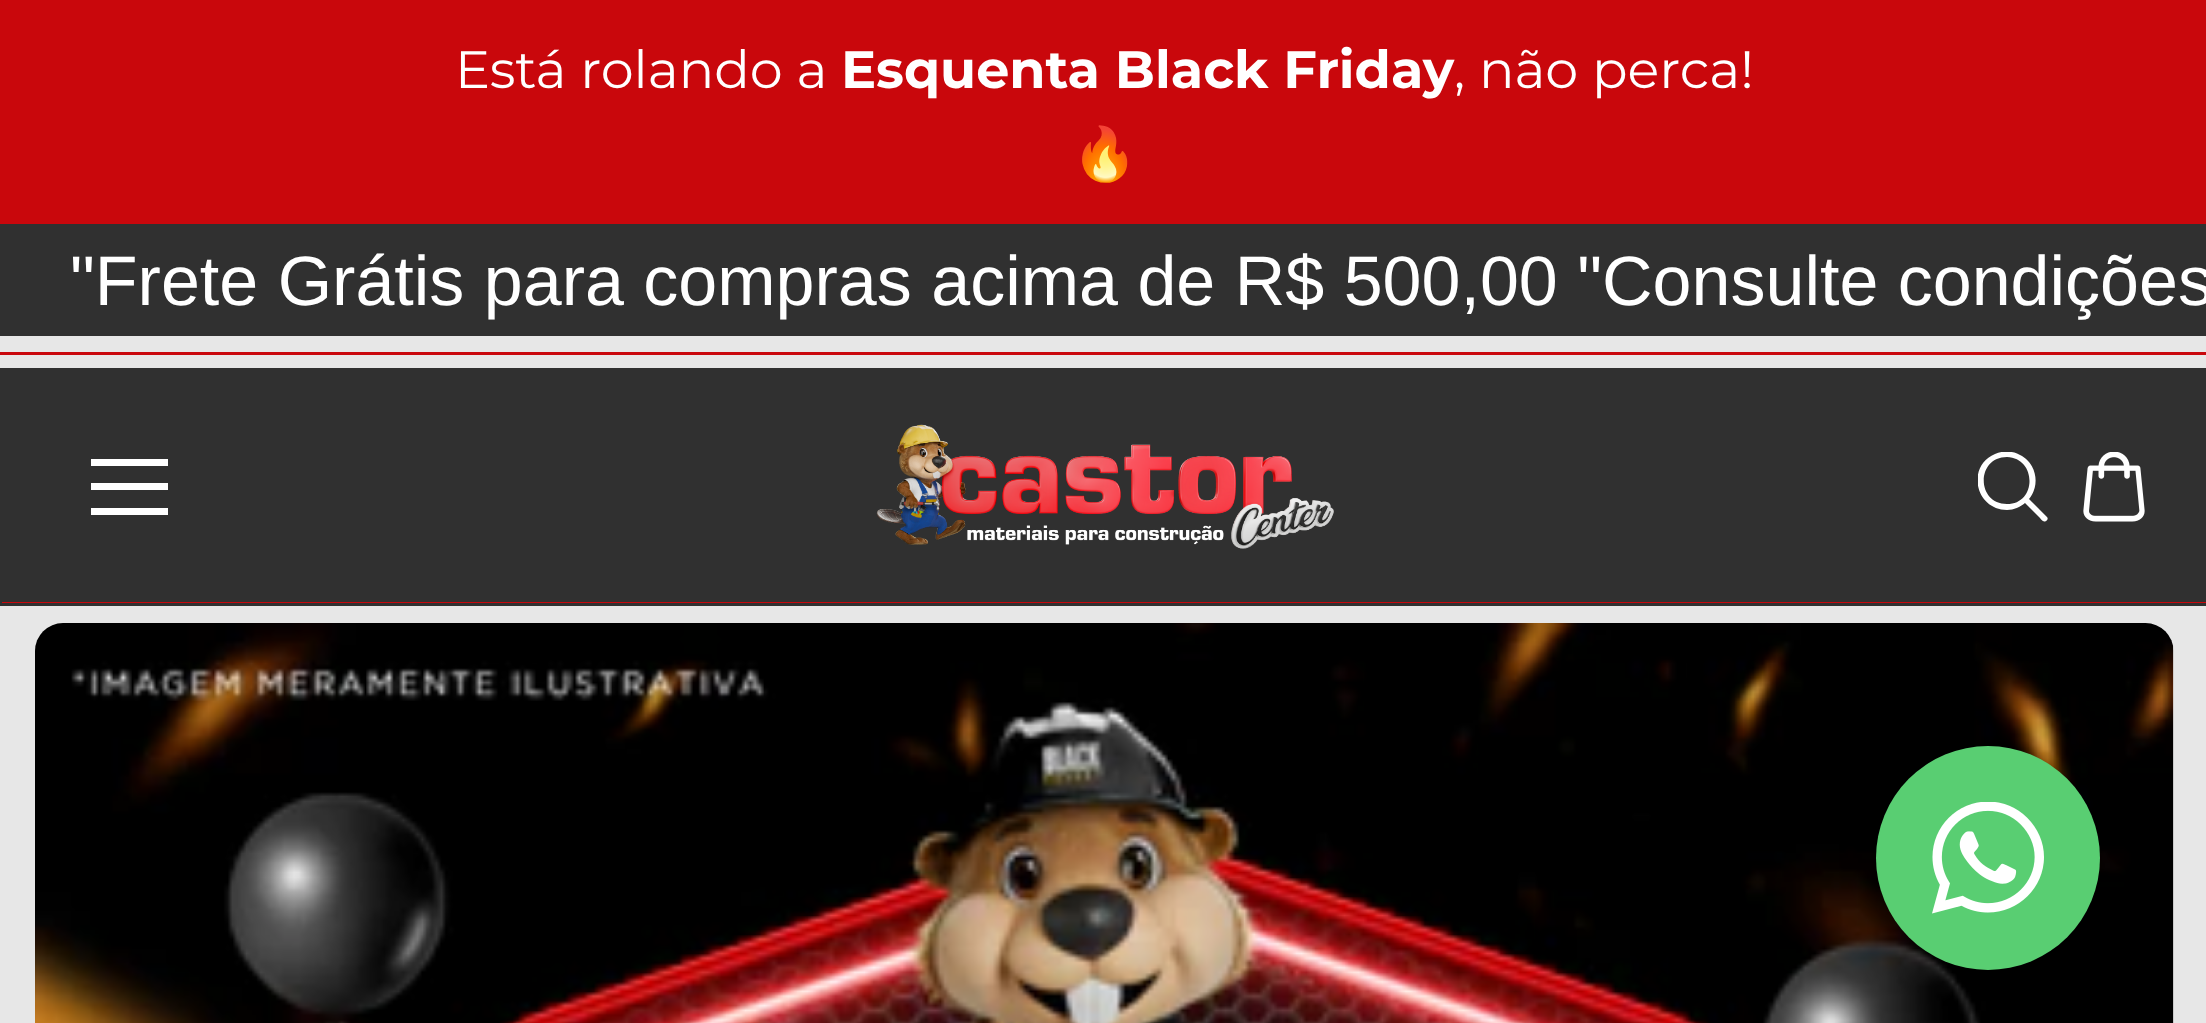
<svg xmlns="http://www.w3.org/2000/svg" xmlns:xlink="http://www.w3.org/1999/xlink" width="2206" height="1023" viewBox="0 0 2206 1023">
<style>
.cls-1{font:52.5px Montserrat;fill:#ffffff}
.cls-2{font:bold 52.5px Montserrat;fill:#ffffff}
.cls-3{font:bold 52.5px Noto Color Emoji;fill:#ffffff}
.cls-4{font:70px Liberation Sans;fill:#ffffff}
</style>
<defs>
<clipPath id="clip1"><rect x="1978" y="452" width="70" height="70"/></clipPath>
</defs>
<rect width="100%" height="100%" fill="#e7e7e7"/>
<rect fill="#c9070c" x="0" y="0" width="2206" height="224"/>
<rect fill="#303030" x="0" y="224" width="2206" height="112"/>
<rect fill="#c9070c" x="0" y="352" width="2206" height="3"/>
<rect fill="#303030" x="0" y="368" width="2206" height="238"/>
<rect fill="#ffffff" x="91" y="459" width="77" height="7"/>
<rect fill="#ffffff" x="91" y="483" width="77" height="7"/>
<rect fill="#ffffff" x="91" y="508" width="77" height="7"/>
<image xlink:href="image0.png" x="876" y="424" width="458" height="125"/>
<g clip-path="url(#clip1)">
<path fill="#ffffff" d="M2047 517L2029 499C2040 486 2037 465 2022 456C2014 451 2004 450 1995 454C1966 466 1975 510 2007 510C2014 510 2020 507 2025 503L2040 518C2041 519 2043 523 2046 521C2048 520 2048 518 2047 517ZM2007 504C1976 504 1976 457 2007 457C2037 458 2037 504 2007 504Z"/>
</g>
<image xlink:href="image1.png" x="2083" y="452" width="62" height="70"/>
<rect fill="#c9070c" x="2" y="602" width="2204" height="1"/>
<image xlink:href="image2.png" x="35" y="623" width="2139" height="400"/>
<circle fill="#59ce72" cx="1988" cy="858" r="112"/>
<image xlink:href="image3.png" x="1932" y="802" width="112" height="112"/>
<text class="cls-1" x="455" y="88">Está rolando a</text>
<text class="cls-2" x="841" y="88">Esquenta Black Friday</text>
<text class="cls-1" x="1454" y="88">, não perca!</text>
<text class="cls-3" x="1072" y="172">🔥</text>
<text class="cls-4" x="70" y="305">"Frete Grátis para compras acima de R$ 500,00 "Consulte condições</text>
</svg>
